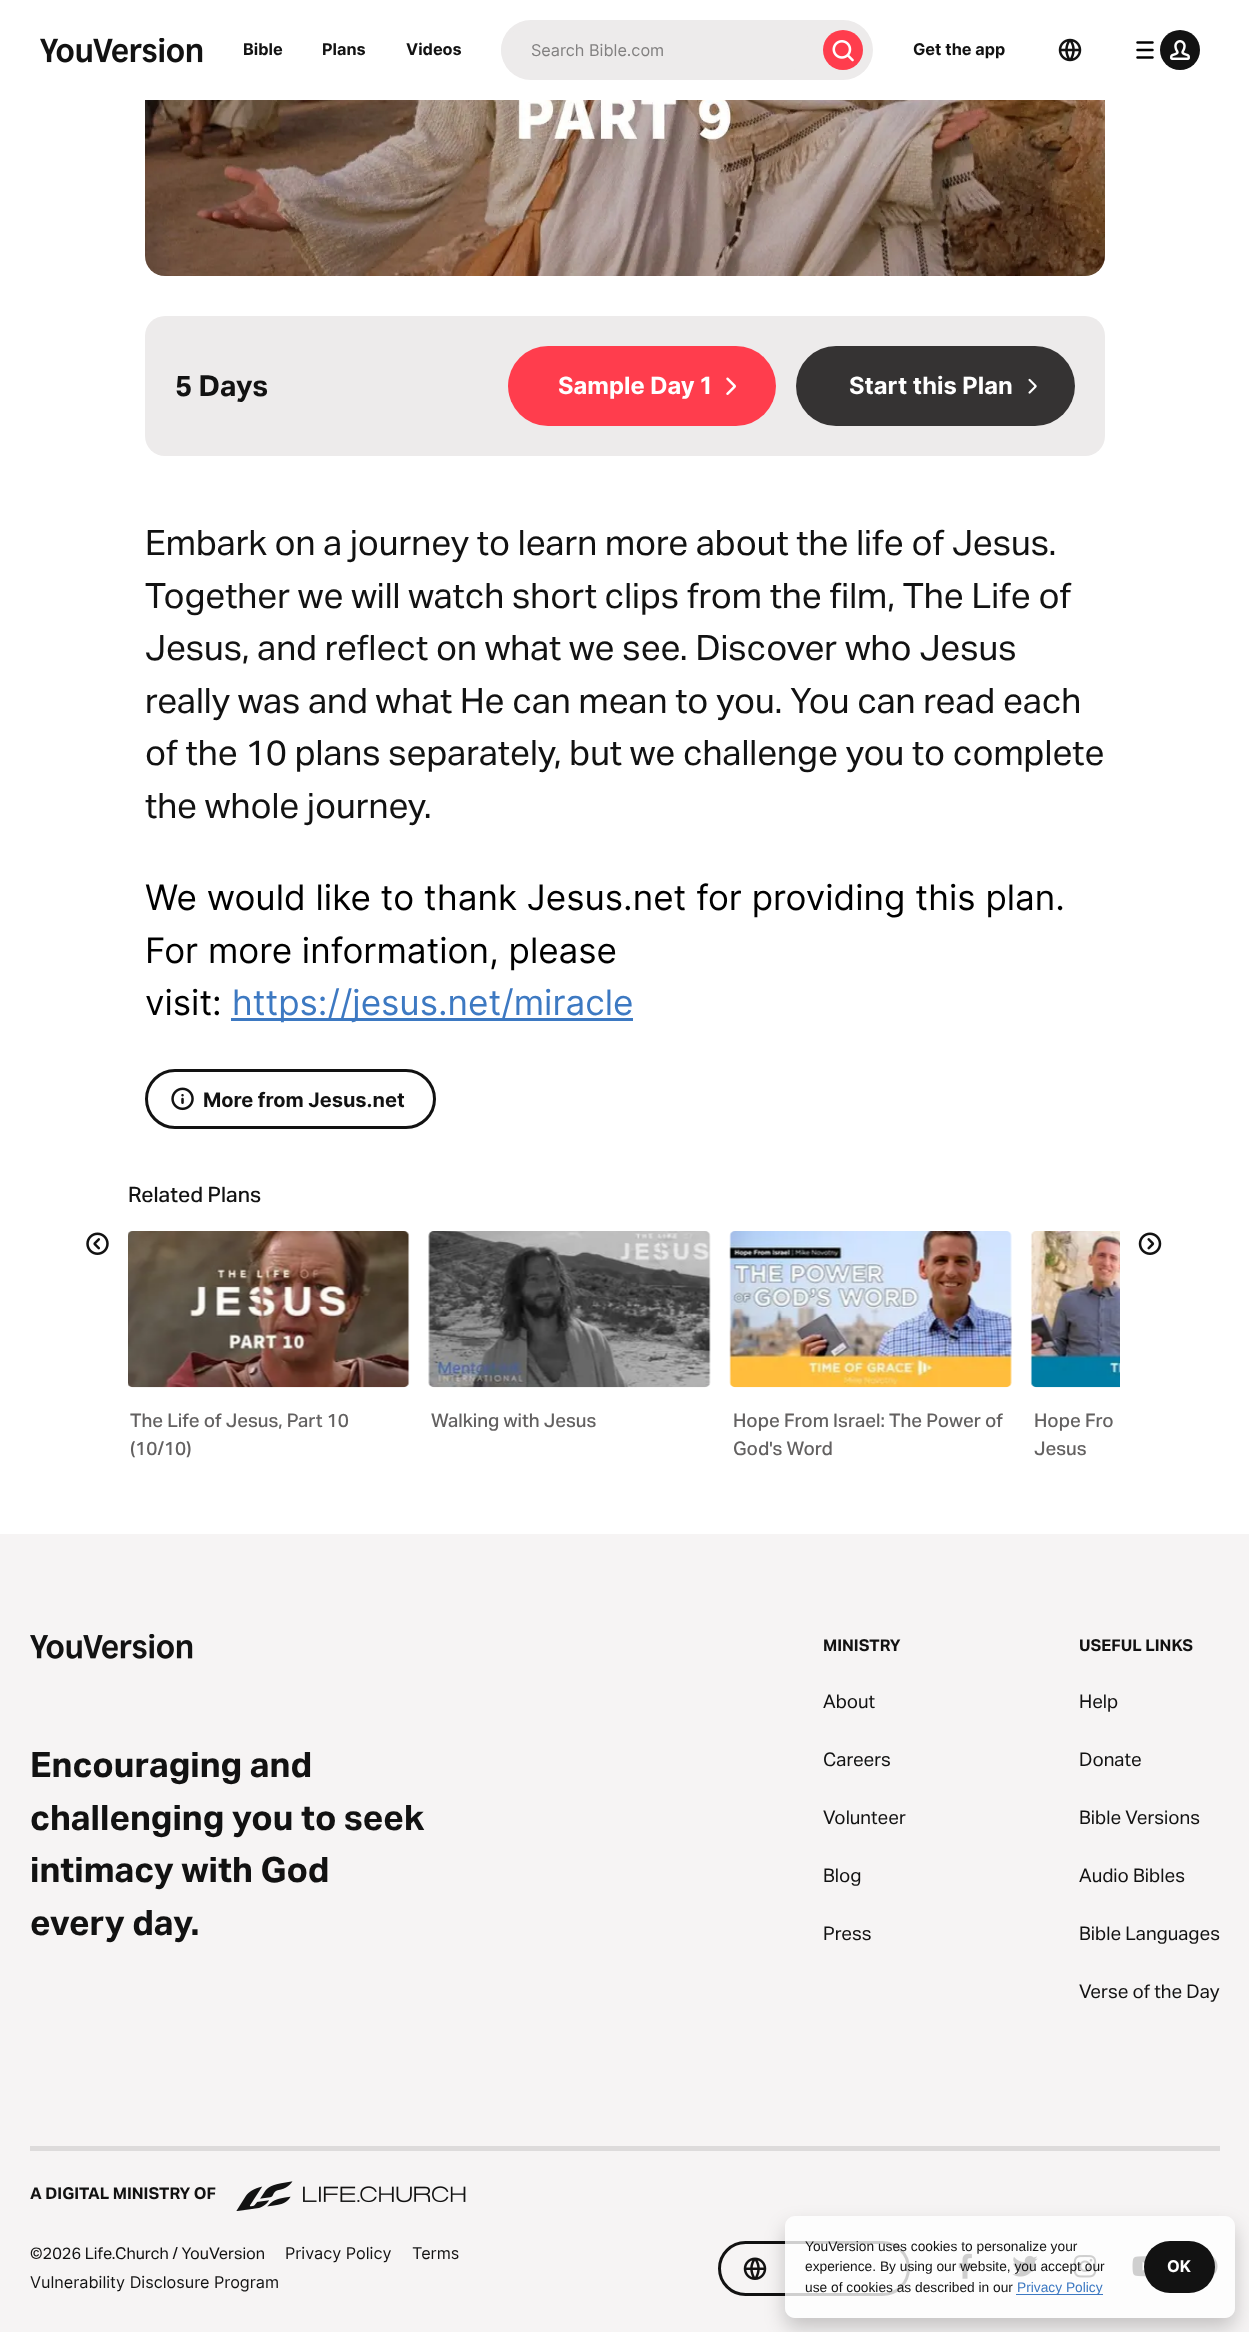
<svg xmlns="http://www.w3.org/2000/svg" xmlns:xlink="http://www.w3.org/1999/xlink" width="1249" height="2332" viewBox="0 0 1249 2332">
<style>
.cls-1{font:bold 16.25px Inter;fill:#121212}
.cls-2{font:16.25px Inter;fill:#828080}
.cls-3{font:bold 29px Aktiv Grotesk;fill:#121212}
.cls-4{font:bold 23.75px Inter;fill:#ffffff}
.cls-5{font:35px Aktiv Grotesk;fill:#121212}
.cls-6{font:35px Inter;fill:#000000}
.cls-7{font:35px Inter;fill:#3d79c2}
.cls-8{font:bold 20px Inter;fill:#121212}
.cls-9{font:500 21.25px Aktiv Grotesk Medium;fill:#121212}
.cls-10{font:500 18.75px Aktiv Grotesk Medium;fill:#636161}
.cls-11{font:bold 35px Aktiv Grotesk;fill:#121212}
.cls-12{font:bold 16.25px Aktiv Grotesk;fill:#121212}
.cls-13{font:18.75px Aktiv Grotesk;fill:#121212}
.cls-14{font:16.25px Aktiv Grotesk;fill:#121212}
.cls-15{font:16.25px Inter;fill:#121212}
.cls-16{font:13.75px Liberation Sans;fill:#121212}
.cls-17{font:13.75px Liberation Sans;fill:#3d79c2}
.cls-18{font:bold 16.25px Inter;fill:#ffffff}
</style>
<defs>
<clipPath id="clip1"><path d="M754 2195H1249V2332H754ZM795 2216H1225C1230.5 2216 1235 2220.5 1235 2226V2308C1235 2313.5 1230.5 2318 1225 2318H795C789.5 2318 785 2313.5 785 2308V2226C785 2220.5 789.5 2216 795 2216Z" clip-rule="evenodd"/></clipPath>
</defs>
<rect width="100%" height="100%" fill="#ffffff"/>
<image xlink:href="image0.png" x="40" y="38" width="163" height="25"/>
<rect fill="#edebeb" x="501" y="20" width="372" height="60" rx="30"/>
<rect fill="#edebeb" x="501" y="30" width="312" height="40" rx="20"/>
<circle fill="#ff3d4d" cx="843" cy="50" r="20"/>
<image xlink:href="image1.png" x="832" y="40" width="22" height="22"/>
<image xlink:href="image2.png" x="1058" y="38" width="24" height="24"/>
<image xlink:href="image3.png" x="1136" y="41" width="18" height="18"/>
<circle fill="#121212" cx="1180" cy="50" r="20"/>
<image xlink:href="image4.png" x="1170" y="40" width="20" height="20"/>
<image xlink:href="image5.png" x="145" y="100" width="960" height="176"/>
<rect fill="#edebeb" x="145" y="316" width="960" height="140" rx="20"/>
<rect fill="#ff3d4d" x="508" y="346" width="268" height="80" rx="40"/>
<image xlink:href="image6.png" x="726" y="377" width="10" height="18"/>
<rect fill="#353333" x="796" y="346" width="279" height="80" rx="40"/>
<image xlink:href="image7.png" x="1028" y="378" width="9" height="16"/>
<rect fill="#3d79c2" x="231" y="1018" width="402" height="3"/>
<rect fill="none" stroke="#121212" stroke-width="3" x="146.5" y="1070.5" width="288" height="57" rx="28.5"/>
<image xlink:href="image8.png" x="171" y="1087" width="23" height="24"/>
<image xlink:href="image9.png" x="86" y="1232" width="23" height="23"/>
<image xlink:href="image10.png" x="128" y="1231" width="282" height="157"/>
<image xlink:href="image11.png" x="428" y="1231" width="283" height="157"/>
<image xlink:href="image12.png" x="729" y="1231" width="283" height="157"/>
<image xlink:href="image13.png" x="1030" y="1231" width="90" height="157"/>
<image xlink:href="image14.png" x="1138" y="1232" width="24" height="23"/>
<rect fill="#f6f4f4" x="0" y="1534" width="1249" height="798"/>
<image xlink:href="image15.png" x="30" y="1634" width="163" height="25"/>
<rect fill="#dddbdb" x="30" y="2146" width="1190" height="5"/>
<image xlink:href="image16.png" x="236" y="2181" width="230" height="30"/>
<rect fill="none" stroke="#121212" stroke-width="3" x="719.5" y="2242.5" width="189" height="52" rx="26"/>
<image xlink:href="image17.png" x="743" y="2257" width="24" height="23"/>
<image xlink:href="image18.png" x="958" y="2253" width="14" height="26"/>
<image xlink:href="image19.png" x="1012" y="2255" width="26" height="22"/>
<image xlink:href="image20.png" x="1073" y="2255" width="24" height="23"/>
<image xlink:href="image21.png" x="1132" y="2256" width="15" height="21"/>
<image xlink:href="image22.png" x="1212" y="2256" width="6" height="20"/>
<g clip-path="url(#clip1)">
<rect fill="#000000" fill-opacity="0.2" filter="blur(10px)" x="785" y="2226" width="450" height="102" rx="10"/>
</g>
<rect fill="#ffffff" fill-opacity="0.8" x="785" y="2216" width="450" height="102" rx="10"/>
<rect fill="#3d79c2" x="1016" y="2294" width="87" height="1"/>
<rect fill="#121212" x="1144" y="2241" width="71" height="52" rx="26"/>
<text class="cls-1" x="243" y="55">Bible</text>
<text class="cls-1" x="322" y="55">Plans</text>
<text class="cls-1" x="406" y="55">Videos</text>
<text class="cls-2" x="531" y="56">Search Bible.com</text>
<text class="cls-1" x="913" y="55">Get the app</text>
<text class="cls-3" x="175" y="396">5 Days</text>
<text class="cls-4" x="558" y="394">Sample Day 1</text>
<text class="cls-4" x="849" y="394">Start this Plan</text>
<text class="cls-5"><tspan x="145" y="555">Embark on a journey to learn more about the life of Jesus.</tspan><tspan x="145" y="608">Together we will watch short clips from the film, The Life of</tspan><tspan x="145" y="660">Jesus, and reflect on what we see. Discover who Jesus</tspan><tspan x="145" y="713">really was and what He can mean to you. You can read each</tspan><tspan x="145" y="765">of the 10 plans separately, but we challenge you to complete</tspan><tspan x="145" y="818">the whole journey.</tspan></text>
<text class="cls-6"><tspan x="145" y="910">We would like to thank Jesus.net for providing this plan.</tspan><tspan x="145" y="963">For more information, please</tspan><tspan x="145" y="1015">visit:</tspan></text>
<text class="cls-7" x="232" y="1015">https://jesus.net/miracle</text>
<text class="cls-8" x="203" y="1107">More from Jesus.net</text>
<text class="cls-9" x="128" y="1202">Related Plans</text>
<text class="cls-10"><tspan x="130" y="1427">The Life of Jesus, Part 10</tspan><tspan x="130" y="1455">(10/10)</tspan></text>
<text class="cls-10" x="431" y="1427">Walking with Jesus</text>
<text class="cls-10"><tspan x="733" y="1427">Hope From Israel: The Power of</tspan><tspan x="733" y="1455">God's Word</tspan></text>
<text class="cls-10"><tspan x="1034" y="1427">Hope Fro</tspan><tspan x="1034" y="1455">Jesus</tspan></text>
<text class="cls-11"><tspan x="30" y="1777">Encouraging and</tspan><tspan x="30" y="1830">challenging you to seek</tspan><tspan x="30" y="1882">intimacy with God</tspan><tspan x="30" y="1935">every day.</tspan></text>
<text class="cls-12" x="823" y="1651">MINISTRY</text>
<text class="cls-13" x="823" y="1708">About</text>
<text class="cls-13" x="823" y="1766">Careers</text>
<text class="cls-13" x="823" y="1824">Volunteer</text>
<text class="cls-13" x="823" y="1882">Blog</text>
<text class="cls-13" x="823" y="1940">Press</text>
<text class="cls-12" x="1079" y="1651">USEFUL LINKS</text>
<text class="cls-13" x="1079" y="1708">Help</text>
<text class="cls-13" x="1079" y="1766">Donate</text>
<text class="cls-13" x="1079" y="1824">Bible Versions</text>
<text class="cls-13" x="1079" y="1882">Audio Bibles</text>
<text class="cls-13" x="1079" y="1940">Bible Languages</text>
<text class="cls-13" x="1079" y="1998">Verse of the Day</text>
<text class="cls-12" x="30" y="2199">A DIGITAL MINISTRY OF</text>
<text class="cls-14" x="30" y="2259">©2026 Life.Church / YouVersion</text>
<text class="cls-15" x="285" y="2259">Privacy Policy</text>
<text class="cls-15" x="412" y="2259">Terms</text>
<text class="cls-15" x="30" y="2288">Vulnerability Disclosure Program</text>
<text class="cls-16"><tspan x="805" y="2251">YouVersion uses cookies to personalize your</tspan><tspan x="805" y="2271">experience. By using our website, you accept our</tspan><tspan x="805" y="2292">use of cookies as described in our</tspan></text>
<text class="cls-17" x="1017" y="2292">Privacy Policy</text>
<text class="cls-18" x="1167" y="2272">OK</text>
</svg>
